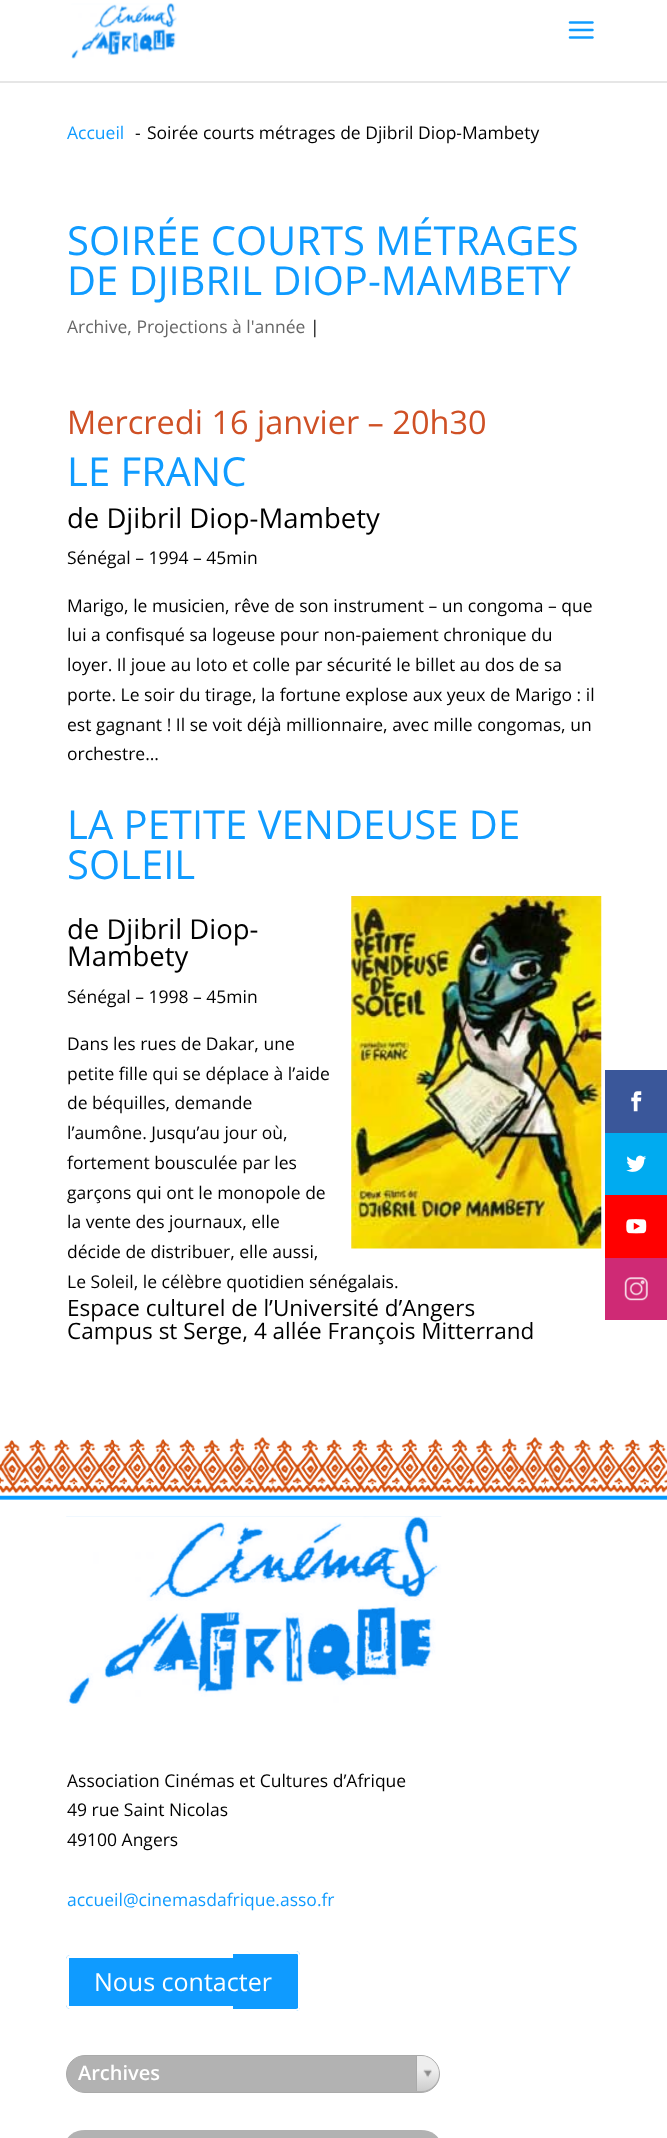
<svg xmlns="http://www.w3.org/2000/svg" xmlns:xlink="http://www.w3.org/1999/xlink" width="667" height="2138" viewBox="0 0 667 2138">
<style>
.cls-1{font:17.5px Open Sans;fill:#0f9bff}
.cls-2{font:17.5px Open Sans;fill:#000000}
.cls-3{font:40px Open Sans;fill:#0f9bff}
.cls-4{font:17.5px Open Sans;fill:#666666}
.cls-5{font:32.5px Open Sans;fill:#cf5025}
.cls-6{font:27.5px Open Sans;fill:#000000}
.cls-7{font:22.5px Open Sans;fill:#000000}
.cls-8{font:25px Open Sans;fill:#ffffff}
.cls-9{font:600 20px Open Sans;fill:#ffffff}
</style>
<defs>
<linearGradient id="g1" gradientUnits="userSpaceOnUse" x1="428" y1="2091" x2="428" y2="2056"><stop offset="0" stop-color="#cccccc"/><stop offset="0.6" stop-color="#eeeeee"/></linearGradient>
</defs>
<rect width="100%" height="100%" fill="#ffffff"/>
<path fill="#e6e6e6" d="M0 81V83H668V-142V81Z"/>
<image xlink:href="image0.png" x="71" y="3" width="106" height="56"/>
<image xlink:href="image1.png" x="568" y="21" width="26" height="18"/>
<rect fill="#3a579a" x="605" y="1070" width="62" height="63"/>
<image xlink:href="image2.png" x="631" y="1091" width="11" height="21"/>
<rect fill="#00abf0" x="605" y="1133" width="62" height="62"/>
<image xlink:href="image3.png" x="626" y="1155" width="21" height="17"/>
<rect fill="#ff0000" x="605" y="1195" width="62" height="63"/>
<image xlink:href="image4.png" x="626" y="1219" width="21" height="15"/>
<rect fill="#cf2a75" x="605" y="1258" width="62" height="62"/>
<image xlink:href="image5.png" x="624" y="1277" width="24" height="24"/>
<image xlink:href="image6.png" x="351" y="896" width="251" height="353"/>
<image xlink:href="image7.png" x="0" y="1437" width="667" height="63"/>
<image xlink:href="image8.png" x="66" y="1516" width="376" height="190"/>
<path fill="#0f9bff" d="M70 1955H273V2009H70C68 2009 66 2007 66 2005V1959C66 1957 68 1955 70 1955Z"/>
<path fill="#ffffff" fill-rule="evenodd" d="M70 1955H272V2009H70C68 2009 66 2007 66 2005V1959C66 1957 68 1955 70 1955ZM70 1958H272V2006H70C69 2006 69 2006 69 2005V1959C69 1958 69 1958 70 1958Z"/>
<path fill="#0f9bff" d="M233 1951H296C298 1951 300 1953 300 1955V2007C300 2009 298 2011 296 2011H233Z"/>
<path fill="#ffffff" fill-rule="evenodd" d="M232 1951H296C298 1951 300 1953 300 1955V2008C300 2010 298 2011 296 2011H232ZM232 1954H296C297 1954 298 1954 298 1955V2008C298 2008 297 2009 296 2009H232Z"/>
<rect fill="#b2b2b2" stroke="#aaaaaa" x="66.5" y="2055.5" width="373" height="37" rx="18.5"/>
<path fill="url(#g1)" d="M416 2056H421.5C431 2056 439 2064 439 2073.5C439 2083 431 2091 421.5 2091H416Z"/>
<rect fill="#aaaaaa" x="416" y="2056" width="1" height="35"/>
<image xlink:href="image9.png" x="423" y="2069" width="9" height="9"/>
<rect fill="#b2b2b2" x="66" y="2130" width="374" height="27" rx="19"/>
<text class="cls-1" x="67" y="139">Accueil</text>
<text class="cls-2" x="135" y="139">-</text>
<text class="cls-2" x="147" y="139">Soirée courts métrages de Djibril Diop-Mambety</text>
<text class="cls-3"><tspan x="67" y="255">SOIRÉE COURTS MÉTRAGES</tspan><tspan x="67" y="295">DE DJIBRIL DIOP-MAMBETY</tspan></text>
<text class="cls-4" x="67" y="333">Archive, Projections à l'année</text>
<text class="cls-2" x="310" y="333">|</text>
<text class="cls-5" x="67" y="434">Mercredi 16 janvier – 20h30</text>
<text class="cls-3" x="67" y="486">LE FRANC</text>
<text class="cls-6" x="67" y="528">de Djibril Diop-Mambety</text>
<text class="cls-2" x="67" y="564">Sénégal – 1994 – 45min</text>
<text class="cls-2"><tspan x="67" y="612">Marigo, le musicien, rêve de son instrument – un congoma – que</tspan><tspan x="67" y="641">lui a confisqué sa logeuse pour non-paiement chronique du</tspan><tspan x="67" y="671">loyer. Il joue au loto et colle par sécurité le billet au dos de sa</tspan><tspan x="67" y="701">porte. Le soir du tirage, la fortune explose aux yeux de Marigo : il</tspan><tspan x="67" y="731">est gagnant ! Il se voit déjà millionnaire, avec mille congomas, un</tspan><tspan x="67" y="760">orchestre…</tspan></text>
<text class="cls-3"><tspan x="67" y="839">LA PETITE VENDEUSE DE</tspan><tspan x="67" y="879">SOLEIL</tspan></text>
<text class="cls-6"><tspan x="67" y="939">de Djibril Diop-</tspan><tspan x="67" y="966">Mambety</tspan></text>
<text class="cls-2" x="67" y="1003">Sénégal – 1998 – 45min</text>
<text class="cls-2"><tspan x="67" y="1050">Dans les rues de Dakar, une</tspan><tspan x="67" y="1080">petite fille qui se déplace à l’aide</tspan><tspan x="67" y="1109">de béquilles, demande</tspan><tspan x="67" y="1139">l’aumône. Jusqu’au jour où,</tspan><tspan x="67" y="1169">fortement bousculée par les</tspan><tspan x="67" y="1199">garçons qui ont le monopole de</tspan><tspan x="67" y="1228">la vente des journaux, elle</tspan><tspan x="67" y="1258">décide de distribuer, elle aussi,</tspan><tspan x="67" y="1288">Le Soleil, le célèbre quotidien sénégalais.</tspan></text>
<text class="cls-7"><tspan x="67" y="1316">Espace culturel de l’Université d’Angers</tspan><tspan x="67" y="1339">Campus st Serge, 4 allée François Mitterrand</tspan></text>
<text class="cls-2"><tspan x="67" y="1787">Association Cinémas et Cultures d’Afrique</tspan><tspan x="67" y="1816">49 rue Saint Nicolas</tspan><tspan x="67" y="1846">49100 Angers</tspan></text>
<text class="cls-1" x="67" y="1906">accueil@cinemasdafrique.asso.fr</text>
<text class="cls-8" x="94" y="1991">Nous contacter</text>
<text class="cls-9" x="78" y="2080">Archives</text>
</svg>
